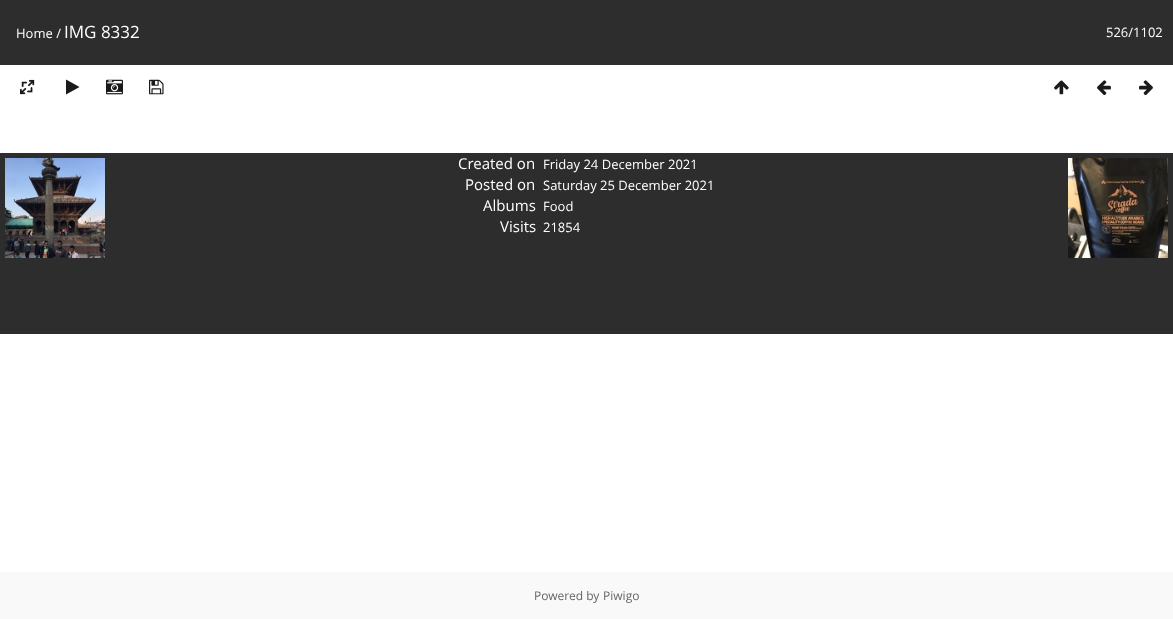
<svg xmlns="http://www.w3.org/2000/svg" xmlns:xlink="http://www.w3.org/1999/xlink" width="1173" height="619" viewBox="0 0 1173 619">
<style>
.cls-1{font:13px Open Sans;fill:#ffffff}
.cls-2{font:17px Open Sans;fill:#ffffff}
.cls-3{font:17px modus;fill:#1a1a1a}
.cls-4{font:15px Open Sans;fill:#ffffff}
.cls-5{font:12px Open Sans;fill:#666666}
</style>
<rect width="100%" height="100%" fill="#ffffff"/>
<rect fill="#2d2d2d" x="0" y="0" width="1173" height="65"/>
<image xlink:href="image0.png" x="20" y="79" width="15" height="16"/>
<image xlink:href="image1.png" x="106" y="79" width="17" height="16"/>
<rect fill="#2d2d2d" x="0" y="153" width="1173" height="181"/>
<image xlink:href="image2.png" x="5" y="158" width="100" height="100"/>
<image xlink:href="image3.png" x="1068" y="158" width="100" height="100"/>
<rect fill="#f9f9f9" x="0" y="572" width="1173" height="47"/>
<text class="cls-1" x="16" y="38">Home /</text>
<text class="cls-2" x="64" y="38">IMG 8332</text>
<text class="cls-1" x="1106" y="37">526/1102</text>
<text class="cls-3" x="66" y="93">▶</text>
<text class="cls-3" x="149" y="93">💾</text>
<text class="cls-3" x="1054" y="93">↑</text>
<text class="cls-3" x="1097" y="93">←</text>
<text class="cls-3" x="1139" y="93">→</text>
<text class="cls-4" x="458" y="169">Created on</text>
<text class="cls-1" x="543" y="169">Friday 24 December 2021</text>
<text class="cls-4" x="465" y="190">Posted on</text>
<text class="cls-1" x="543" y="190">Saturday 25 December 2021</text>
<text class="cls-4" x="483" y="211">Albums</text>
<text class="cls-1" x="543" y="211">Food</text>
<text class="cls-4" x="500" y="232">Visits</text>
<text class="cls-1" x="543" y="232">21854</text>
<text class="cls-5" x="534" y="600">Powered by</text>
<text class="cls-5" x="603" y="600">Piwigo</text>
</svg>
